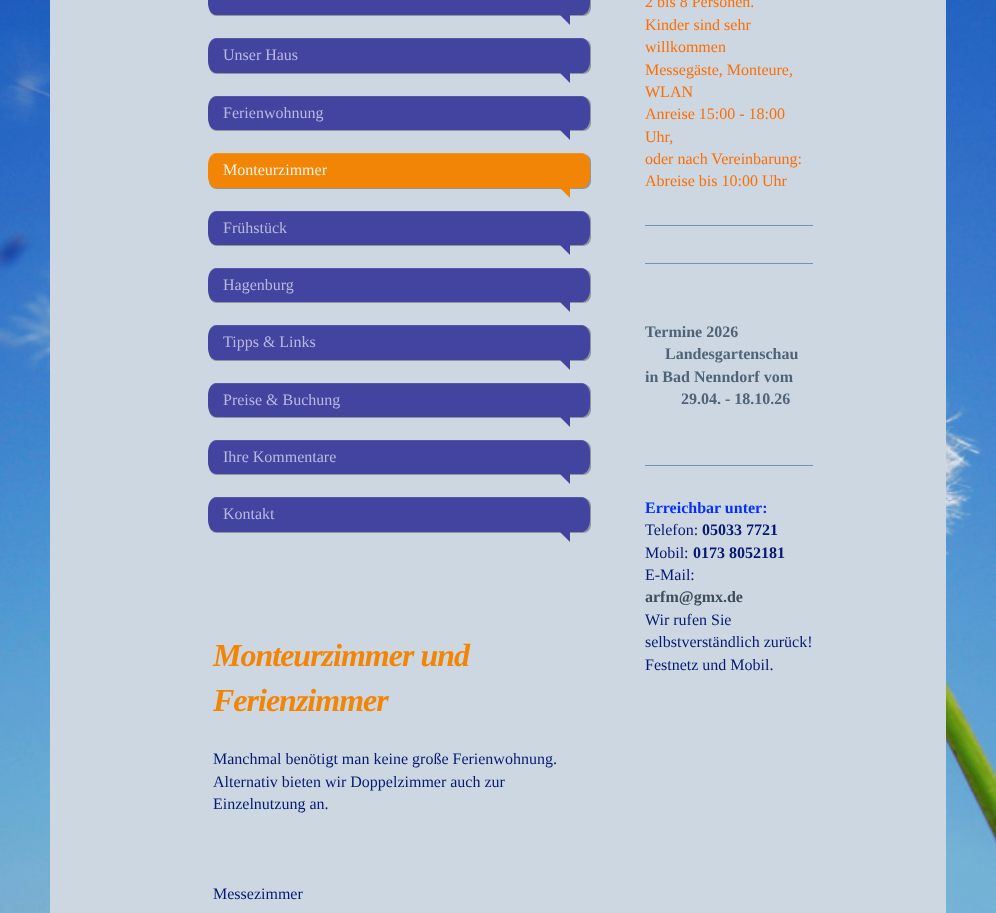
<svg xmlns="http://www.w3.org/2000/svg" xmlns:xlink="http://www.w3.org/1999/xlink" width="996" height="913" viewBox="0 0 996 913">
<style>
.cls-1{font:16px Liberation Serif;fill:#b9b9e0}
.cls-2{font:16px Liberation Serif;fill:#fef3e6}
.cls-3{font:italic bold 32px Liberation Serif;letter-spacing:-1px;fill:#f28505}
.cls-4{font:16px Liberation Serif;fill:#051972}
.cls-5{font:16px Liberation Serif;fill:#fb6e05}
.cls-6{font:bold 16px Liberation Serif;fill:#506479}
.cls-7{font:bold 16px Liberation Serif;fill:#0231f9}
.cls-8{font:bold 16px Liberation Serif;fill:#051972}
.cls-9{font:bold 16px Liberation Serif;fill:#3e4d5c}
</style>
<rect width="100%" height="100%" fill="#ffffff"/>
<image xlink:href="image0.png" x="0" y="0" width="996" height="913"/>
<rect fill="#cdd7e1" x="50" y="0" width="896" height="913"/>
<rect fill="#000000" fill-opacity="0.3" filter="blur(0.5px)" x="209" y="-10" width="382" height="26" rx="8"/>
<path fill="#42449f" d="M216-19H582C586-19 590-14 590-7V3C590 10 586 15 582 15H216C212 15 208 10 208 3V-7C208-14 212-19 216-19Z"/>
<path fill="#42449f" d="M560 15H570V25Z"/>
<rect fill="#000000" fill-opacity="0.3" filter="blur(0.5px)" x="209" y="39" width="382" height="35" rx="8"/>
<path fill="#42449f" d="M216 38H582C586 38 590 43 590 50V61C590 68 586 73 582 73H216C212 73 208 68 208 61V50C208 43 212 38 216 38Z"/>
<path fill="#ffffff" fill-opacity="0.1" d="M216 39H582C586 39 590 44 590 51V50C590 43 586 38 582 38H216C212 38 208 43 208 50V51C208 44 212 39 216 39Z"/>
<path fill="#42449f" d="M560 73H570V83Z"/>
<rect fill="#000000" fill-opacity="0.3" filter="blur(0.5px)" x="209" y="97" width="382" height="34" rx="8"/>
<path fill="#42449f" d="M216 96H582C586 96 590 101 590 108V118C590 125 586 130 582 130H216C212 130 208 125 208 118V108C208 101 212 96 216 96Z"/>
<path fill="#ffffff" fill-opacity="0.1" d="M216 97H582C586 97 590 102 590 109V108C590 101 586 96 582 96H216C212 96 208 101 208 108V109C208 102 212 97 216 97Z"/>
<path fill="#42449f" d="M560 130H570V140Z"/>
<rect fill="#000000" fill-opacity="0.3" filter="blur(0.5px)" x="209" y="154" width="382" height="35" rx="8"/>
<path fill="#f28505" d="M216 153H582C586 153 590 158 590 165V176C590 183 586 188 582 188H216C212 188 208 183 208 176V165C208 158 212 153 216 153Z"/>
<path fill="#ffffff" fill-opacity="0.1" d="M216 154H582C586 154 590 159 590 166V165C590 158 586 153 582 153H216C212 153 208 158 208 165V166C208 159 212 154 216 154Z"/>
<path fill="#f28505" d="M560 188H570V198Z"/>
<rect fill="#000000" fill-opacity="0.3" filter="blur(0.5px)" x="209" y="212" width="382" height="34" rx="8"/>
<path fill="#42449f" d="M216 211H582C586 211 590 216 590 223V233C590 240 586 245 582 245H216C212 245 208 240 208 233V223C208 216 212 211 216 211Z"/>
<path fill="#ffffff" fill-opacity="0.1" d="M216 212H582C586 212 590 217 590 224V223C590 216 586 211 582 211H216C212 211 208 216 208 223V224C208 217 212 212 216 212Z"/>
<path fill="#42449f" d="M560 245H570V255Z"/>
<rect fill="#000000" fill-opacity="0.3" filter="blur(0.5px)" x="209" y="269" width="382" height="34" rx="8"/>
<path fill="#42449f" d="M216 268H582C586 268 590 273 590 280V290C590 297 586 302 582 302H216C212 302 208 297 208 290V280C208 273 212 268 216 268Z"/>
<path fill="#ffffff" fill-opacity="0.1" d="M216 269H582C586 269 590 274 590 281V280C590 273 586 268 582 268H216C212 268 208 273 208 280V281C208 274 212 269 216 269Z"/>
<path fill="#42449f" d="M560 302H570V312Z"/>
<rect fill="#000000" fill-opacity="0.3" filter="blur(0.5px)" x="209" y="326" width="382" height="35" rx="8"/>
<path fill="#42449f" d="M216 325H582C586 325 590 330 590 337V348C590 355 586 360 582 360H216C212 360 208 355 208 348V337C208 330 212 325 216 325Z"/>
<path fill="#ffffff" fill-opacity="0.1" d="M216 326H582C586 326 590 331 590 338V337C590 330 586 325 582 325H216C212 325 208 330 208 337V338C208 331 212 326 216 326Z"/>
<path fill="#42449f" d="M560 360H570V370Z"/>
<rect fill="#000000" fill-opacity="0.3" filter="blur(0.5px)" x="209" y="384" width="382" height="34" rx="8"/>
<path fill="#42449f" d="M216 383H582C586 383 590 388 590 395V405C590 412 586 417 582 417H216C212 417 208 412 208 405V395C208 388 212 383 216 383Z"/>
<path fill="#ffffff" fill-opacity="0.1" d="M216 384H582C586 384 590 389 590 396V395C590 388 586 383 582 383H216C212 383 208 388 208 395V396C208 389 212 384 216 384Z"/>
<path fill="#42449f" d="M560 417H570V427Z"/>
<rect fill="#000000" fill-opacity="0.3" filter="blur(0.5px)" x="209" y="441" width="382" height="34" rx="8"/>
<path fill="#42449f" d="M216 440H582C586 440 590 445 590 452V462C590 469 586 474 582 474H216C212 474 208 469 208 462V452C208 445 212 440 216 440Z"/>
<path fill="#ffffff" fill-opacity="0.1" d="M216 441H582C586 441 590 446 590 453V452C590 445 586 440 582 440H216C212 440 208 445 208 452V453C208 446 212 441 216 441Z"/>
<path fill="#42449f" d="M560 474H570V484Z"/>
<rect fill="#000000" fill-opacity="0.3" filter="blur(0.5px)" x="209" y="498" width="382" height="35" rx="8"/>
<path fill="#42449f" d="M216 497H582C586 497 590 502 590 509V520C590 527 586 532 582 532H216C212 532 208 527 208 520V509C208 502 212 497 216 497Z"/>
<path fill="#ffffff" fill-opacity="0.1" d="M216 498H582C586 498 590 503 590 510V509C590 502 586 497 582 497H216C212 497 208 502 208 509V510C208 503 212 498 216 498Z"/>
<path fill="#42449f" d="M560 532H570V542Z"/>
<rect fill="#7792ad" x="645" y="225" width="168" height="1"/>
<rect fill="#7792ad" x="645" y="263" width="168" height="1"/>
<rect fill="#7792ad" x="645" y="465" width="168" height="1"/>
<text class="cls-1" x="223" y="60">Unser Haus</text>
<text class="cls-1" x="223" y="118">Ferienwohnung</text>
<text class="cls-2" x="223" y="175">Monteurzimmer</text>
<text class="cls-1" x="223" y="233">Frühstück</text>
<text class="cls-1" x="223" y="290">Hagenburg</text>
<text class="cls-1" x="223" y="347">Tipps &amp; Links</text>
<text class="cls-1" x="223" y="405">Preise &amp; Buchung</text>
<text class="cls-1" x="223" y="462">Ihre Kommentare</text>
<text class="cls-1" x="223" y="519">Kontakt</text>
<text class="cls-3"><tspan x="213" y="666">Monteurzimmer und</tspan><tspan x="213" y="711">Ferienzimmer</tspan></text>
<text class="cls-4"><tspan x="213" y="764">Manchmal benötigt man keine große Ferienwohnung.</tspan><tspan x="213" y="787">Alternativ bieten wir Doppelzimmer auch zur</tspan><tspan x="213" y="809">Einzelnutzung an.</tspan></text>
<text class="cls-4" x="213" y="899">Messezimmer</text>
<text class="cls-5"><tspan x="645" y="7">2 bis 8 Personen.</tspan><tspan x="645" y="30">Kinder sind sehr</tspan><tspan x="645" y="52">willkommen</tspan><tspan x="645" y="75">Messegäste, Monteure,</tspan><tspan x="645" y="97">WLAN</tspan><tspan x="645" y="119">Anreise 15:00 - 18:00</tspan><tspan x="645" y="142">Uhr,</tspan><tspan x="645" y="164">oder nach Vereinbarung:</tspan><tspan x="645" y="186">Abreise bis 10:00 Uhr</tspan></text>
<text class="cls-6" x="645" y="337">Termine 2026</text>
<text class="cls-6" x="665" y="359">Landesgartenschau</text>
<text class="cls-6" x="645" y="382">in Bad Nenndorf vom</text>
<text class="cls-6" x="681" y="404">29.04. - 18.10.26</text>
<text class="cls-7" x="645" y="513">Erreichbar unter:</text>
<text class="cls-4" x="645" y="535">Telefon:</text>
<text class="cls-8" x="702" y="535">05033 7721</text>
<text class="cls-4" x="645" y="558">Mobil:</text>
<text class="cls-8" x="693" y="558">0173 8052181</text>
<text class="cls-4" x="645" y="580">E-Mail:</text>
<text class="cls-9" x="645" y="602">arfm@gmx.de</text>
<text class="cls-4"><tspan x="645" y="625">Wir rufen Sie</tspan><tspan x="645" y="647">selbstverständlich zurück!</tspan><tspan x="645" y="670">Festnetz und Mobil.</tspan></text>
</svg>
